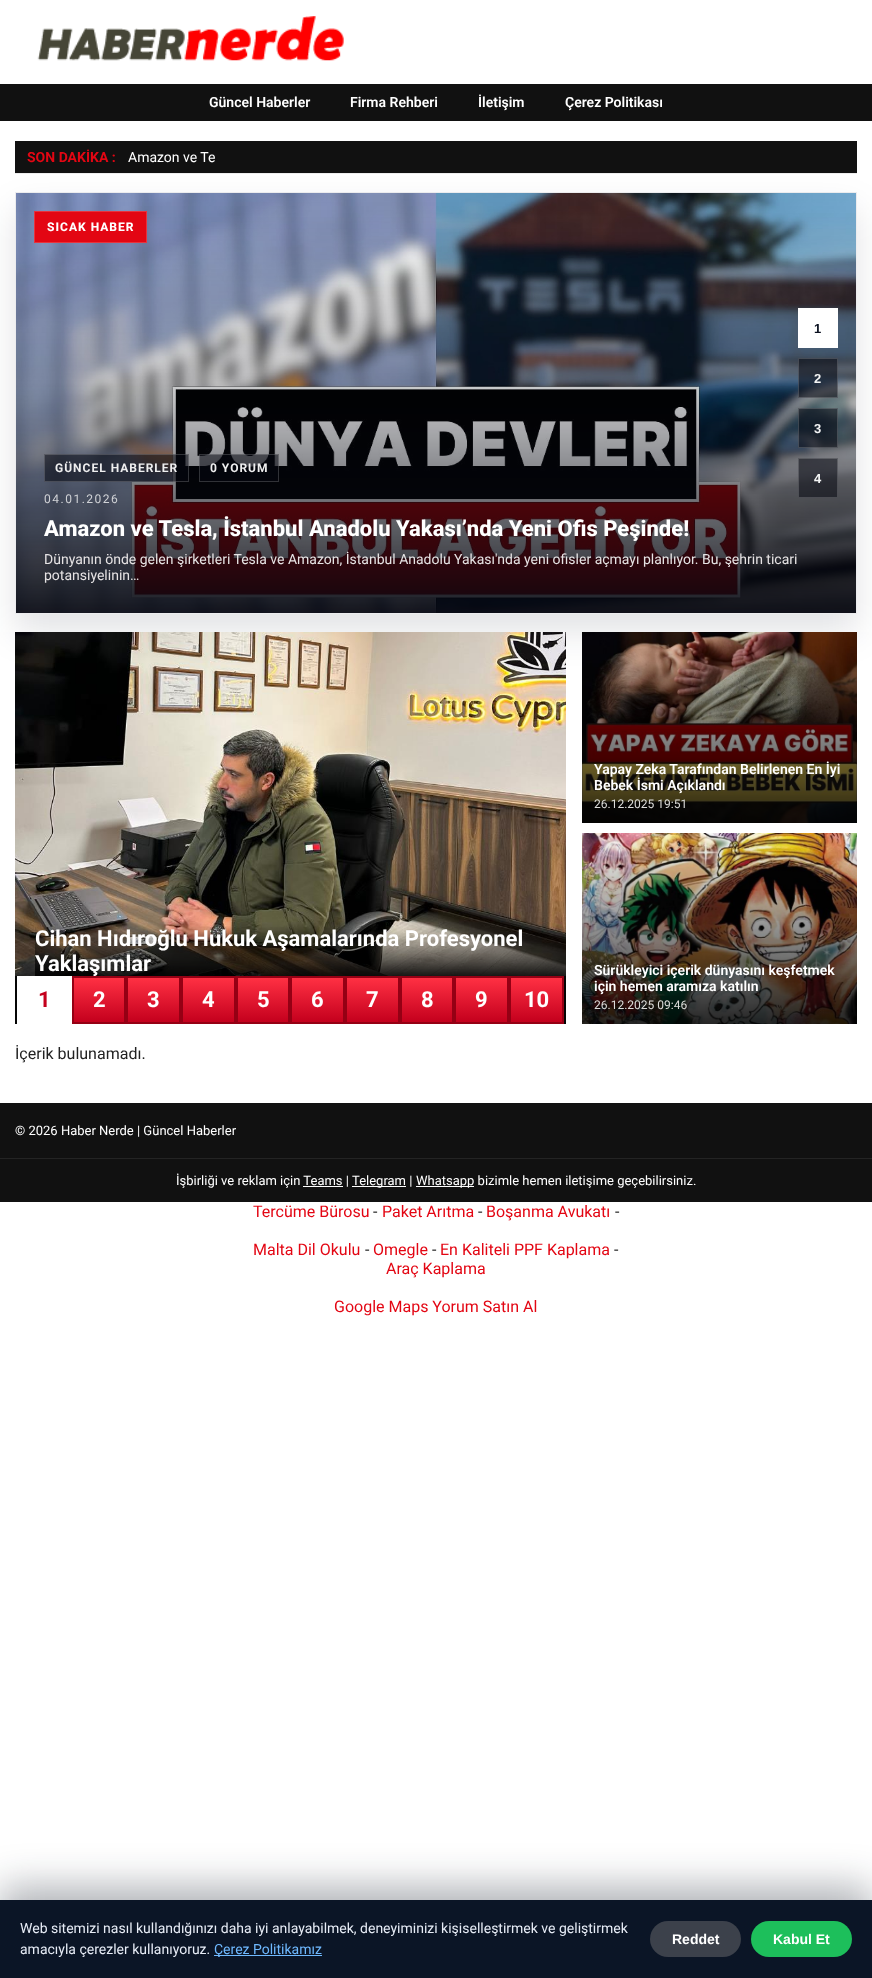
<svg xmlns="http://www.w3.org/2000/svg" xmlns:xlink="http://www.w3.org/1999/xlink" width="872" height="1978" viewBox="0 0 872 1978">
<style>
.cls-1{font:600 14px Roboto;fill:#ffffff}
.cls-2{font:bold 14px Roboto;fill:#e30613}
.cls-3{font:14px Roboto;fill:#ffffff}
.cls-4{font:800 12px Roboto;letter-spacing:1px;fill:#ffffff}
.cls-5{font:bold 12px Roboto;letter-spacing:1px;fill:#eeeeef}
.cls-6{font:12px Roboto;letter-spacing:1.5px;fill:#d0d2d6}
.cls-7{font:800 22px Roboto;fill:#ffffff}
.cls-8{font:14px Roboto;fill:#e6e3e4}
.cls-9{font:bold 13px Liberation Sans;fill:#0b1120}
.cls-10{font:bold 13px Liberation Sans;fill:#f4f5f5}
.cls-11{font:bold 22px Roboto;fill:#ffffff}
.cls-12{font:bold 22px Roboto;fill:#c4001d}
.cls-13{font:12px Roboto;fill:#dcdcda}
.cls-14{font:16px Roboto;fill:#222222}
.cls-15{font:13px Roboto;fill:#ffffff}
.cls-16{font:16px Roboto;fill:#e30613}
.cls-17{font:14px Roboto;fill:#e7ecf6}
.cls-18{font:14px Roboto;fill:#6fb9ff}
.cls-19{font:bold 14px Liberation Sans;fill:#ffffff}
</style>
<defs>
<clipPath id="clip1"><rect x="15" y="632" width="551" height="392"/></clipPath>
<linearGradient id="g1" gradientUnits="userSpaceOnUse" x1="99" y1="978" x2="99" y2="1022"><stop offset="0" stop-color="#ff3043"/><stop offset="1" stop-color="#c4001d"/></linearGradient>
<linearGradient id="g2" gradientUnits="userSpaceOnUse" x1="154" y1="978" x2="154" y2="1022"><stop offset="0" stop-color="#ff3043"/><stop offset="1" stop-color="#c4001d"/></linearGradient>
<linearGradient id="g3" gradientUnits="userSpaceOnUse" x1="209" y1="978" x2="209" y2="1022"><stop offset="0" stop-color="#ff3043"/><stop offset="1" stop-color="#c4001d"/></linearGradient>
<linearGradient id="g4" gradientUnits="userSpaceOnUse" x1="263" y1="978" x2="263" y2="1022"><stop offset="0" stop-color="#ff3043"/><stop offset="1" stop-color="#c4001d"/></linearGradient>
<linearGradient id="g5" gradientUnits="userSpaceOnUse" x1="318" y1="978" x2="318" y2="1022"><stop offset="0" stop-color="#ff3043"/><stop offset="1" stop-color="#c4001d"/></linearGradient>
<linearGradient id="g6" gradientUnits="userSpaceOnUse" x1="373" y1="978" x2="373" y2="1022"><stop offset="0" stop-color="#ff3043"/><stop offset="1" stop-color="#c4001d"/></linearGradient>
<linearGradient id="g7" gradientUnits="userSpaceOnUse" x1="427" y1="978" x2="427" y2="1022"><stop offset="0" stop-color="#ff3043"/><stop offset="1" stop-color="#c4001d"/></linearGradient>
<linearGradient id="g8" gradientUnits="userSpaceOnUse" x1="482" y1="978" x2="482" y2="1022"><stop offset="0" stop-color="#ff3043"/><stop offset="1" stop-color="#c4001d"/></linearGradient>
<linearGradient id="g9" gradientUnits="userSpaceOnUse" x1="537" y1="978" x2="537" y2="1022"><stop offset="0" stop-color="#ff3043"/><stop offset="1" stop-color="#c4001d"/></linearGradient>
</defs>
<rect width="100%" height="100%" fill="#ffffff"/>
<image xlink:href="image0.png" x="37" y="16" width="307" height="45"/>
<rect fill="#111111" x="0" y="84" width="872" height="37"/>
<rect fill="#ededed" x="15" y="173" width="842" height="1"/>
<rect fill="#111111" x="15" y="141" width="842" height="32"/>
<rect fill="#101828" fill-opacity="0.12" filter="blur(17.5px)" x="15" y="210" width="842" height="422"/>
<rect fill="none" stroke="#ececee" x="15.5" y="192.5" width="841" height="421"/>
<image xlink:href="image1.png" x="16" y="193" width="840" height="420"/>
<rect fill="#e30613" stroke="#e8333d" x="34.5" y="211.5" width="112" height="31"/>
<rect fill="#050710" fill-opacity="0.55" x="44" y="454" width="145" height="28"/>
<rect fill="none" stroke="#ffffff" stroke-opacity="0.18" x="44.5" y="454.5" width="144" height="27"/>
<rect fill="#050710" fill-opacity="0.55" x="199" y="454" width="80" height="28"/>
<rect fill="none" stroke="#ffffff" stroke-opacity="0.18" x="199.5" y="454.5" width="79" height="27"/>
<rect fill="#ffffff" x="798" y="308" width="40" height="40"/>
<rect fill="#050710" fill-opacity="0.55" x="798" y="358" width="40" height="40"/>
<rect fill="none" stroke="#ffffff" stroke-opacity="0.18" x="798.5" y="358.5" width="39" height="39"/>
<rect fill="#050710" fill-opacity="0.55" x="798" y="408" width="40" height="40"/>
<rect fill="none" stroke="#ffffff" stroke-opacity="0.18" x="798.5" y="408.5" width="39" height="39"/>
<rect fill="#050710" fill-opacity="0.55" x="798" y="458" width="40" height="40"/>
<rect fill="none" stroke="#ffffff" stroke-opacity="0.18" x="798.5" y="458.5" width="39" height="39"/>
<image xlink:href="image2.png" x="15" y="632" width="551" height="344"/>
<image xlink:href="image4.png" x="582" y="833" width="275" height="191"/>
<g clip-path="url(#clip1)">
<rect fill="#000000" fill-opacity="0.35" filter="blur(9px)" x="15" y="970" width="551" height="48"/>
</g>
<image xlink:href="image3.png" x="582" y="632" width="275" height="191"/>
<rect fill="#111111" x="0" y="1103" width="872" height="55"/>
<rect fill="#111111" x="0" y="1159" width="872" height="43"/>
<rect fill="#242424" x="0" y="1158" width="872" height="1"/>
<rect fill="#ffffff" x="352" y="1186" width="54" height="1"/>
<rect fill="#ffffff" x="416" y="1186" width="58" height="1"/>
<rect fill="#ffffff" x="303" y="1186" width="40" height="1"/>
<rect fill="#0c1522" fill-opacity="0.35" filter="blur(20px)" x="0" y="1888" width="872" height="78"/>
<rect fill="#0b1526" x="0" y="1900" width="872" height="78"/>
<rect fill="#6fb9ff" x="214" y="1955" width="108" height="1"/>
<rect fill="#3c414b" x="650" y="1921" width="91" height="36" rx="18"/>
<rect fill="#1dbf5b" x="751" y="1921" width="101" height="36" rx="18"/>
<text class="cls-1" x="209" y="107">Güncel Haberler</text>
<text class="cls-1" x="350" y="107">Firma Rehberi</text>
<text class="cls-1" x="478" y="107">İletişim</text>
<text class="cls-1" x="565" y="107">Çerez Politikası</text>
<text class="cls-2" x="27" y="162">SON DAKİKA :</text>
<text class="cls-3" x="128" y="162">Amazon ve Te</text>
<text class="cls-4" x="47" y="231">SICAK HABER</text>
<text class="cls-5" x="55" y="472">GÜNCEL HABERLER</text>
<text class="cls-5" x="210" y="472">0 YORUM</text>
<text class="cls-6" x="44" y="503">04.01.2026</text>
<text class="cls-7" x="44" y="536">Amazon ve Tesla, İstanbul Anadolu Yakası’nda Yeni Ofis Peşinde!</text>
<text class="cls-8"><tspan x="44" y="564">Dünyanın önde gelen şirketleri Tesla ve Amazon, İstanbul Anadolu Yakası'nda yeni ofisler açmayı planlıyor. Bu, şehrin ticari</tspan><tspan x="44" y="580">potansiyelinin…</tspan></text>
<text class="cls-9" x="814" y="333">1</text>
<text class="cls-10" x="814" y="383">2</text>
<text class="cls-10" x="814" y="433">3</text>
<text class="cls-10" x="814" y="483">4</text>
<text class="cls-11"><tspan x="35" y="946">Cihan Hıdıroğlu Hukuk Aşamalarında Profesyonel</tspan><tspan x="35" y="971">Yaklaşımlar</tspan></text>
<rect fill="#050505" x="15" y="976" width="551" height="48"/>
<rect fill="#ffffff" x="17" y="976" width="55" height="48"/>
<text class="cls-12" x="38" y="1007">1</text>
<rect fill="url(#g1)" x="74" y="978" width="50" height="44"/>
<rect fill="none" stroke="#950014" stroke-width="2" x="73" y="977" width="52" height="46"/>
<text class="cls-11" x="93" y="1007">2</text>
<rect fill="url(#g2)" x="128" y="978" width="51" height="44"/>
<rect fill="none" stroke="#950014" stroke-width="2" x="127" y="977" width="53" height="46"/>
<text class="cls-11" x="147" y="1007">3</text>
<rect fill="url(#g3)" x="183" y="978" width="51" height="44"/>
<rect fill="none" stroke="#950014" stroke-width="2" x="182" y="977" width="53" height="46"/>
<text class="cls-11" x="202" y="1007">4</text>
<rect fill="url(#g4)" x="238" y="978" width="50" height="44"/>
<rect fill="none" stroke="#950014" stroke-width="2" x="237" y="977" width="52" height="46"/>
<text class="cls-11" x="257" y="1007">5</text>
<rect fill="url(#g5)" x="292" y="978" width="51" height="44"/>
<rect fill="none" stroke="#950014" stroke-width="2" x="291" y="977" width="53" height="46"/>
<text class="cls-11" x="311" y="1007">6</text>
<rect fill="url(#g6)" x="347" y="978" width="51" height="44"/>
<rect fill="none" stroke="#950014" stroke-width="2" x="346" y="977" width="53" height="46"/>
<text class="cls-11" x="366" y="1007">7</text>
<rect fill="url(#g7)" x="402" y="978" width="50" height="44"/>
<rect fill="none" stroke="#950014" stroke-width="2" x="401" y="977" width="52" height="46"/>
<text class="cls-11" x="421" y="1007">8</text>
<rect fill="url(#g8)" x="456" y="978" width="51" height="44"/>
<rect fill="none" stroke="#950014" stroke-width="2" x="455" y="977" width="53" height="46"/>
<text class="cls-11" x="475" y="1007">9</text>
<rect fill="url(#g9)" x="511" y="978" width="51" height="44"/>
<rect fill="none" stroke="#950014" stroke-width="2" x="510" y="977" width="53" height="46"/>
<text class="cls-11" x="524" y="1007">10</text>
<text class="cls-1"><tspan x="594" y="774">Yapay Zeka Tarafından Belirlenen En İyi</tspan><tspan x="594" y="790">Bebek İsmi Açıklandı</tspan></text>
<text class="cls-13" x="594" y="808">26.12.2025 19:51</text>
<text class="cls-1"><tspan x="594" y="975">Sürükleyici içerik dünyasını keşfetmek</tspan><tspan x="594" y="991">için hemen aramıza katılın</tspan></text>
<text class="cls-13" x="594" y="1009">26.12.2025 09:46</text>
<text class="cls-14" x="15" y="1059">İçerik bulunamadı.</text>
<text class="cls-15" x="15" y="1135">© 2026 Haber Nerde | Güncel Haberler</text>
<text class="cls-15" x="176" y="1185">İşbirliği ve reklam için Teams |</text>
<text class="cls-15" x="352" y="1185">Telegram |</text>
<text class="cls-15" x="416" y="1185">Whatsapp bizimle hemen iletişime geçebilirsiniz.</text>
<text class="cls-16" x="253" y="1217">Tercüme Bürosu</text>
<text class="cls-14" x="373" y="1217">-</text>
<text class="cls-16" x="382" y="1217">Paket Arıtma</text>
<text class="cls-14" x="478" y="1217">-</text>
<text class="cls-16" x="486" y="1217">Boşanma Avukatı</text>
<text class="cls-14" x="615" y="1217">-</text>
<text class="cls-16" x="253" y="1255">Malta Dil Okulu</text>
<text class="cls-14" x="365" y="1255">-</text>
<text class="cls-16" x="373" y="1255">Omegle</text>
<text class="cls-14" x="432" y="1255">-</text>
<text class="cls-16" x="440" y="1255">En Kaliteli PPF Kaplama</text>
<text class="cls-14" x="614" y="1255">-</text>
<text class="cls-16" x="386" y="1274">Araç Kaplama</text>
<text class="cls-16" x="334" y="1312">Google Maps Yorum Satın Al</text>
<text class="cls-17"><tspan x="20" y="1933">Web sitemizi nasıl kullandığınızı daha iyi anlayabilmek, deneyiminizi kişiselleştirmek ve geliştirmek</tspan><tspan x="20" y="1954">amacıyla çerezler kullanıyoruz.</tspan></text>
<text class="cls-18" x="214" y="1954">Çerez Politikamız</text>
<text class="cls-19" x="672" y="1944">Reddet</text>
<text class="cls-19" x="773" y="1944">Kabul Et</text>
</svg>
